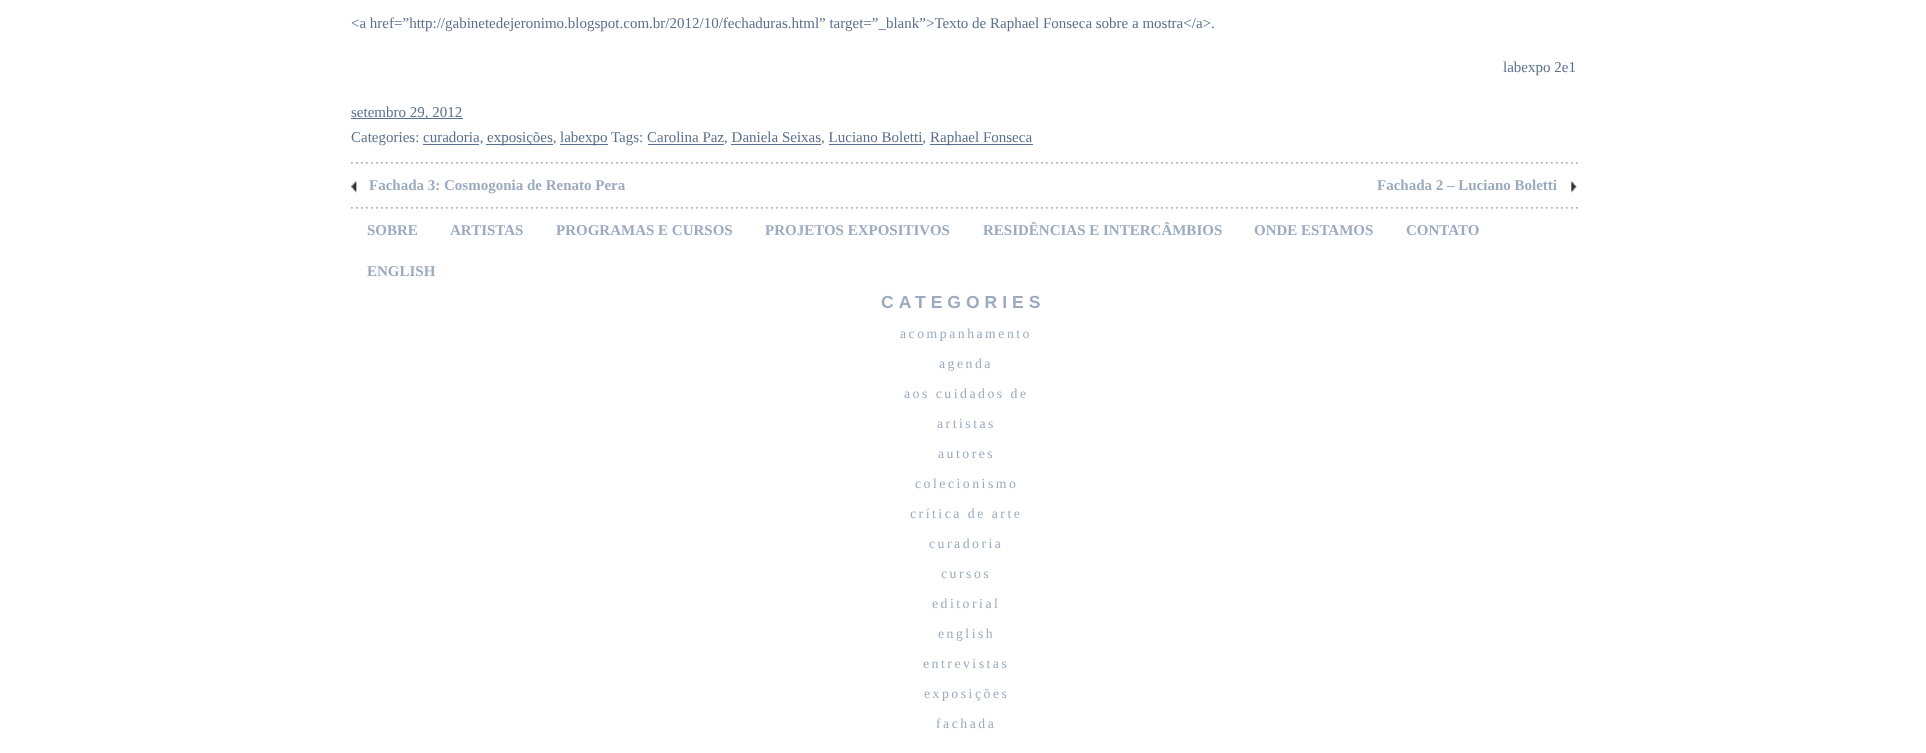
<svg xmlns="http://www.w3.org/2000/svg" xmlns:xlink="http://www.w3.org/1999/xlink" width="1926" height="753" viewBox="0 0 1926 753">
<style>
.cls-1{font:15px Liberation Serif;fill:#5b708e}
.cls-2{font:bold 15px Liberation Serif;fill:#9cabc0}
.cls-3{font:bold 17.5px Liberation Sans;letter-spacing:5px;fill:#9cabc0}
.cls-4{font:13.75px Liberation Serif;letter-spacing:2.5px;fill:#9cabc0}
</style>
<rect width="100%" height="100%" fill="#ffffff"/>
<rect fill="#5b708e" x="351" y="118" width="112" height="1"/>
<rect fill="#5b708e" x="486" y="144" width="67" height="1"/>
<rect fill="#5b708e" x="560" y="144" width="48" height="1"/>
<rect fill="#5b708e" x="930" y="144" width="103" height="1"/>
<rect fill="#5b708e" x="423" y="144" width="56" height="1"/>
<rect fill="#5b708e" x="648" y="144" width="76" height="1"/>
<rect fill="#5b708e" x="731" y="144" width="90" height="1"/>
<rect fill="#5b708e" x="829" y="144" width="94" height="1"/>
<image xlink:href="image0.png" x="351" y="162" width="1227" height="2"/>
<image xlink:href="image1.png" x="351" y="181" width="6" height="12"/>
<image xlink:href="image2.png" x="1571" y="181" width="6" height="12"/>
<image xlink:href="image0.png" x="351" y="207" width="1227" height="2"/>
<text class="cls-1" x="351" y="28">&lt;a href=”http://gabinetedejeronimo.blogspot.com.br/2012/10/fechaduras.html” target=”_blank”&gt;Texto de Raphael Fonseca sobre a mostra&lt;/a&gt;.</text>
<text class="cls-1" x="1503" y="72">labexpo 2e1</text>
<text class="cls-1"><tspan x="351" y="117">setembro 29, 2012</tspan><tspan x="351" y="142">Categories: curadoria,</tspan></text>
<text class="cls-1" x="487" y="142">exposições,</text>
<text class="cls-1" x="560" y="142">labexpo Tags: Carolina Paz, Daniela Seixas, Luciano Boletti,</text>
<text class="cls-1" x="930" y="142">Raphael Fonseca</text>
<text class="cls-2" x="369" y="190">Fachada 3: Cosmogonia de Renato Pera</text>
<text class="cls-2" x="1377" y="190">Fachada 2 – Luciano Boletti</text>
<text class="cls-2" x="367" y="235">SOBRE</text>
<text class="cls-2" x="450" y="235">ARTISTAS</text>
<text class="cls-2" x="556" y="235">PROGRAMAS E CURSOS</text>
<text class="cls-2" x="765" y="235">PROJETOS EXPOSITIVOS</text>
<text class="cls-2" x="983" y="235">RESIDÊNCIAS E INTERCÂMBIOS</text>
<text class="cls-2" x="1254" y="235">ONDE ESTAMOS</text>
<text class="cls-2" x="1406" y="235">CONTATO</text>
<text class="cls-2" x="367" y="276">ENGLISH</text>
<text class="cls-3" x="881" y="308">CATEGORIES</text>
<text class="cls-4" x="900" y="338">acompanhamento</text>
<text class="cls-4" x="939" y="368">agenda</text>
<text class="cls-4" x="904" y="398">aos cuidados de</text>
<text class="cls-4" x="937" y="428">artistas</text>
<text class="cls-4" x="938" y="458">autores</text>
<text class="cls-4" x="915" y="488">colecionismo</text>
<text class="cls-4" x="910" y="518">crítica de arte</text>
<text class="cls-4" x="929" y="548">curadoria</text>
<text class="cls-4" x="941" y="578">cursos</text>
<text class="cls-4" x="932" y="608">editorial</text>
<text class="cls-4" x="938" y="638">english</text>
<text class="cls-4" x="923" y="668">entrevistas</text>
<text class="cls-4" x="924" y="698">exposições</text>
<text class="cls-4" x="936" y="728">fachada</text>
</svg>
